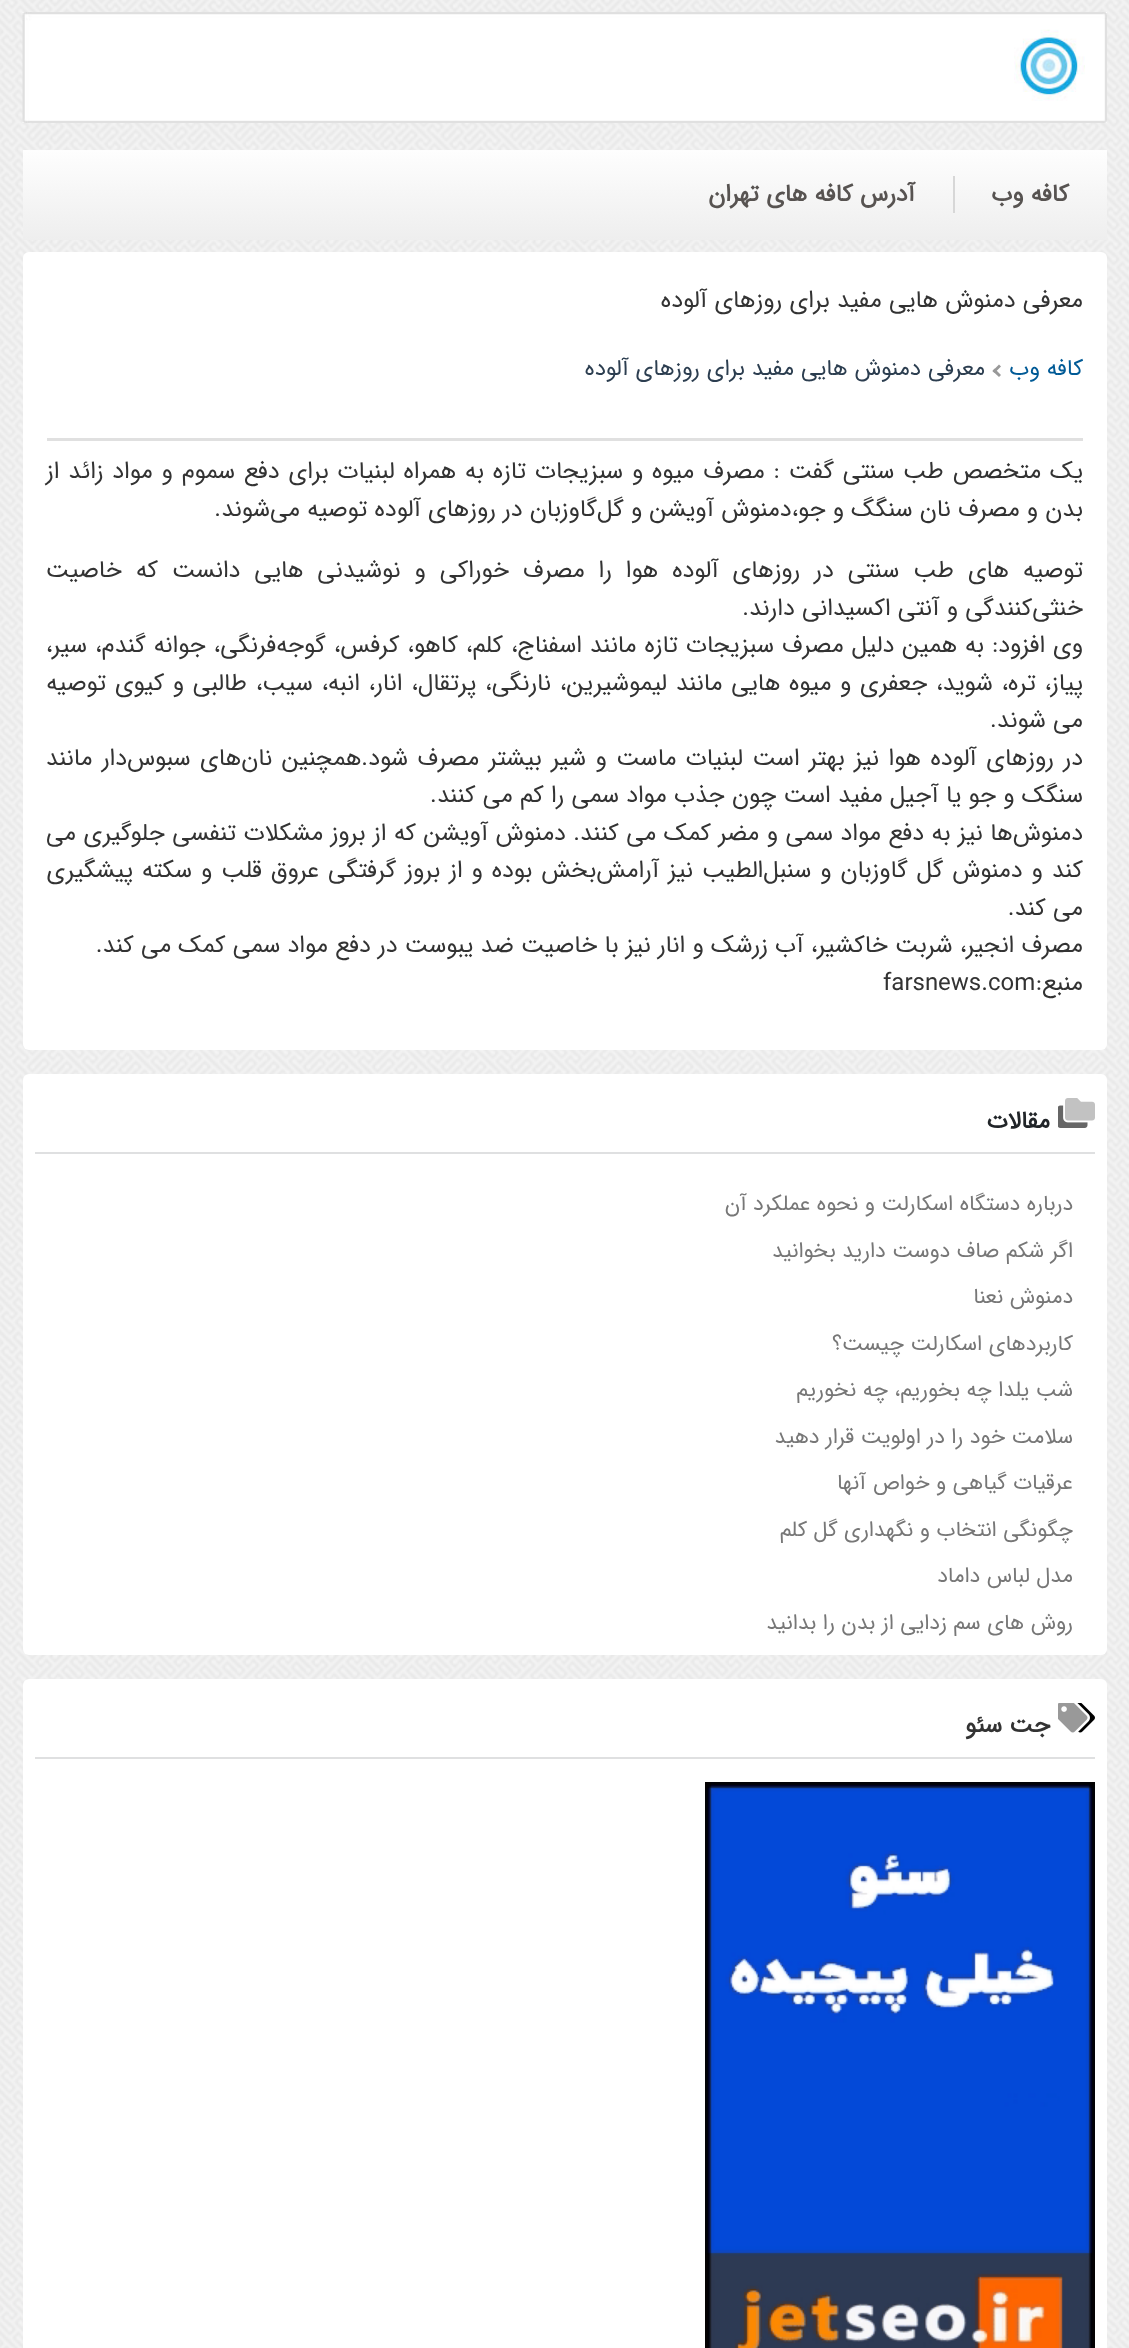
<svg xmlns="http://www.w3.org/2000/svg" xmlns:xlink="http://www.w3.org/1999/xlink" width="1129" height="2348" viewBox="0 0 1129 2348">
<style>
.cls-1{font:bold 24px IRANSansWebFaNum;direction:rtl;fill:#575351}
.cls-2{font:24px IRANSansWebFaNum;direction:rtl;fill:#333333}
.cls-3{font:22.75px IRANSansWebFaNum;direction:rtl;fill:#005a96}
.cls-4{font:22.75px IRANSansWebFaNum;direction:rtl;fill:#2c3e50}
.cls-5{font:24px IRANSansWebFaNum;fill:#333333}
.cls-6{font:bold 24px IRANSansWebFaNum;direction:rtl;fill:#212529}
.cls-7{font:21.6px IRANSansWebFaNum;direction:rtl;fill:#777777}
.cls-8{font:bold 24px IRANSansWebFaNum;direction:rtl;fill:#333333}
</style>
<defs>
<linearGradient id="g1" gradientUnits="userSpaceOnUse" x1="565" y1="150" x2="565" y2="240"><stop offset="0" stop-color="#fefefe"/><stop offset="1" stop-color="#eeeeee"/></linearGradient>
</defs>
<rect width="100%" height="100%" fill="#ffffff"/>
<image xlink:href="image0.png" x="0" y="0" width="1129" height="2348"/>
<image xlink:href="image1.png" x="22" y="12" width="1085" height="111"/>
<rect fill="url(#g1)" x="23" y="150" width="1084" height="90"/>
<rect fill="#d7d7d7" x="953" y="176" width="2" height="37"/>
<rect fill="#ffffff" x="23" y="252" width="1084" height="798" rx="6"/>
<rect fill="#e0e0e0" x="47" y="438" width="1036" height="3"/>
<path fill="#999999" d="M994.5 368.5L1001 375L999 377L992.5 371Z"/>
<path fill="#999999" d="M999 364.5L1001 366.5L994.5 373L992.5 371Z"/>
<rect fill="#ffffff" x="23" y="1074" width="1084" height="581" rx="6"/>
<image xlink:href="image2.png" x="1058" y="1098" width="37" height="30"/>
<rect fill="#dfe0e1" x="35" y="1152" width="1060" height="2"/>
<rect fill="#ffffff" x="23" y="1679" width="1084" height="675" rx="6"/>
<image xlink:href="image3.png" x="1058" y="1703" width="37" height="30"/>
<rect fill="#dfe0e1" x="35" y="1757" width="1060" height="2"/>
<image xlink:href="image4.png" x="705" y="1782" width="390" height="566"/>
<text class="cls-1" x="1069" y="201">کافه وب</text>
<text class="cls-1" x="915" y="201">آدرس کافه های تهران</text>
<text class="cls-2" x="1083" y="307">معرفی دمنوش هایی مفید برای روزهای آلوده</text>
<text class="cls-3" x="1083" y="375">کافه وب</text>
<text class="cls-4" x="985" y="375">معرفی دمنوش هایی مفید برای روزهای آلوده</text>
<text class="cls-2"><tspan x="1083" y="478" word-spacing="1.6">یک متخصص طب سنتی گفت : مصرف میوه و سبزیجات تازه به همراه لبنیات برای دفع سموم و مواد زائد از</tspan><tspan x="1083" y="516">بدن و مصرف نان سنگگ و جو،دمنوش آویشن و گل‌گاوزبان در روزهای آلوده توصیه می‌شوند.</tspan></text>
<text class="cls-2"><tspan x="1083" y="577" word-spacing="6.75">توصیه های طب سنتی در روزهای آلوده هوا را مصرف خوراکی و نوشیدنی هایی دانست که خاصیت</tspan><tspan x="1083" y="615">خنثی‌کنندگی و آنتی اکسیدانی دارند.</tspan><tspan x="1083" y="652" word-spacing="0.75">وی افزود: به همین دلیل مصرف سبزیجات تازه مانند اسفناج، کلم، کاهو، کرفس، گوجه‌فرنگی، جوانه گندم، سیر،</tspan><tspan x="1083" y="690" word-spacing="1.5">پیاز، تره، شوید، جعفری و میوه هایی مانند لیموشیرین، نارنگی، پرتقال، انار، انبه، سیب، طالبی و کیوی توصیه</tspan><tspan x="1083" y="727">می شوند.</tspan><tspan x="1083" y="765" word-spacing="2.25">در روزهای آلوده هوا نیز بهتر است لبنیات ماست و شیر بیشتر مصرف شود.همچنین نان‌های سبوس‌دار مانند</tspan><tspan x="1083" y="802">سنگک و جو یا آجیل مفید است چون جذب مواد سمی را کم می کنند.</tspan><tspan x="1083" y="840" word-spacing="0.25">دمنوش‌ها نیز به دفع مواد سمی و مضر کمک می کنند. دمنوش آویشن که از بروز مشکلات تنفسی جلوگیری می</tspan><tspan x="1083" y="877" word-spacing="1.75">کند و دمنوش گل گاوزبان و سنبل‌الطیب نیز آرامش‌بخش بوده و از بروز گرفتگی عروق قلب و سکته پیشگیری</tspan><tspan x="1083" y="915">می کند.</tspan><tspan x="1083" y="952">مصرف انجیر، شربت خاکشیر، آب زرشک و انار نیز با خاصیت ضد یبوست در دفع مواد سمی کمک می کند.</tspan><tspan x="1083" y="990">منبع:</tspan></text>
<text class="cls-5" x="883" y="990">farsnews.com</text>
<text class="cls-6" x="1050" y="1128">مقالات</text>
<text class="cls-7" x="1073" y="1210">درباره دستگاه اسکارلت و نحوه عملکرد آن</text>
<text class="cls-7" x="1073" y="1257">اگر شکم صاف دوست دارید بخوانید</text>
<text class="cls-7" x="1073" y="1303">دمنوش نعنا</text>
<text class="cls-7" x="1073" y="1350">کاربردهای اسکارلت چیست؟</text>
<text class="cls-7" x="1073" y="1396">شب یلدا چه بخوریم، چه نخوریم</text>
<text class="cls-7" x="1073" y="1443">سلامت خود را در اولویت قرار دهید</text>
<text class="cls-7" x="1073" y="1489">عرقیات گیاهی و خواص آنها</text>
<text class="cls-7" x="1073" y="1536">چگونگی انتخاب و نگهداری گل کلم</text>
<text class="cls-7" x="1073" y="1582">مدل لباس داماد</text>
<text class="cls-7" x="1073" y="1629">روش های سم زدایی از بدن را بدانید</text>
<text class="cls-8" x="1050" y="1732">جت سئو</text>
</svg>
